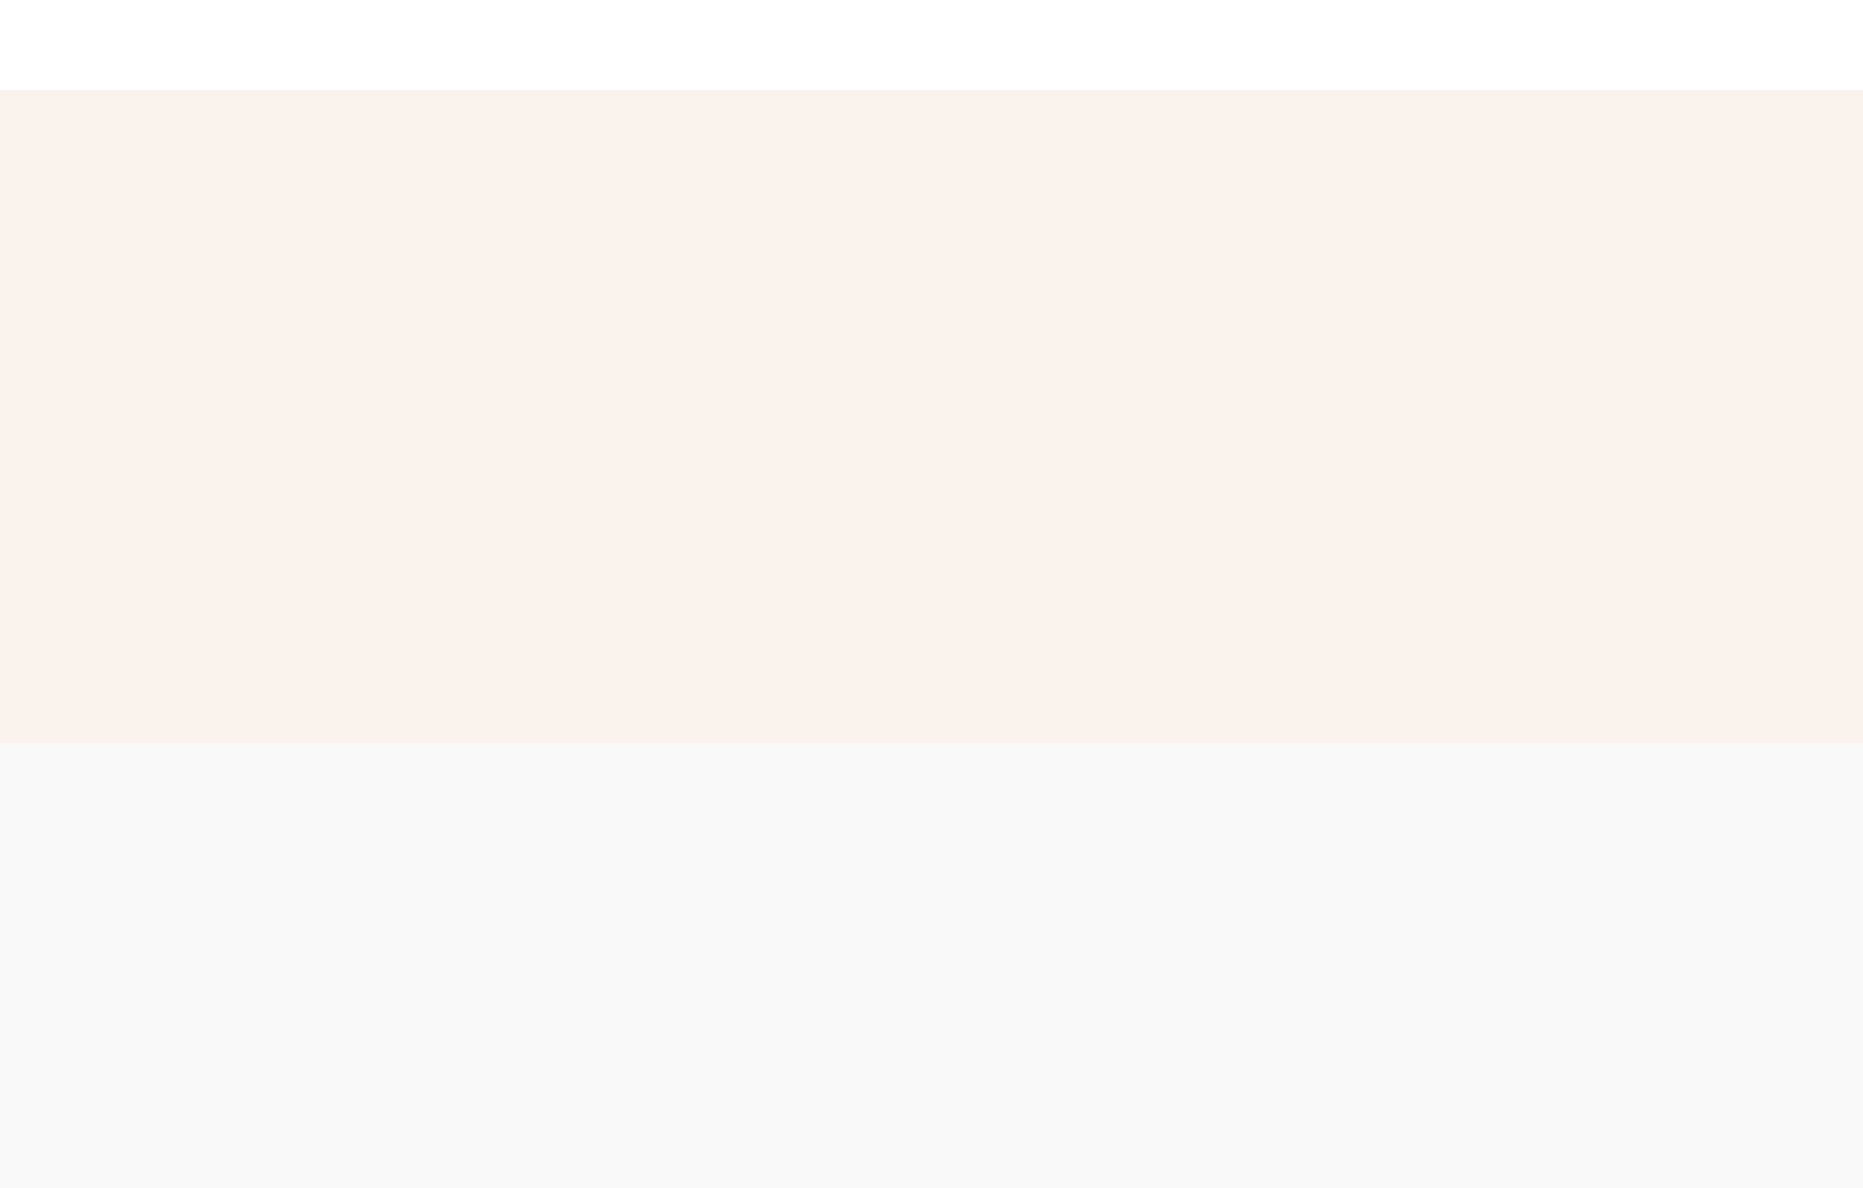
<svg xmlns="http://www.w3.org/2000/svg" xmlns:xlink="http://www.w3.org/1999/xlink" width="1863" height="1188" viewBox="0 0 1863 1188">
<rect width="100%" height="100%" fill="#f9f9f9"/>
<rect fill="#faf2ed" x="0" y="90" width="1863" height="653"/>
<rect fill="#ffffff" x="0" y="0" width="1863" height="90"/>
</svg>
